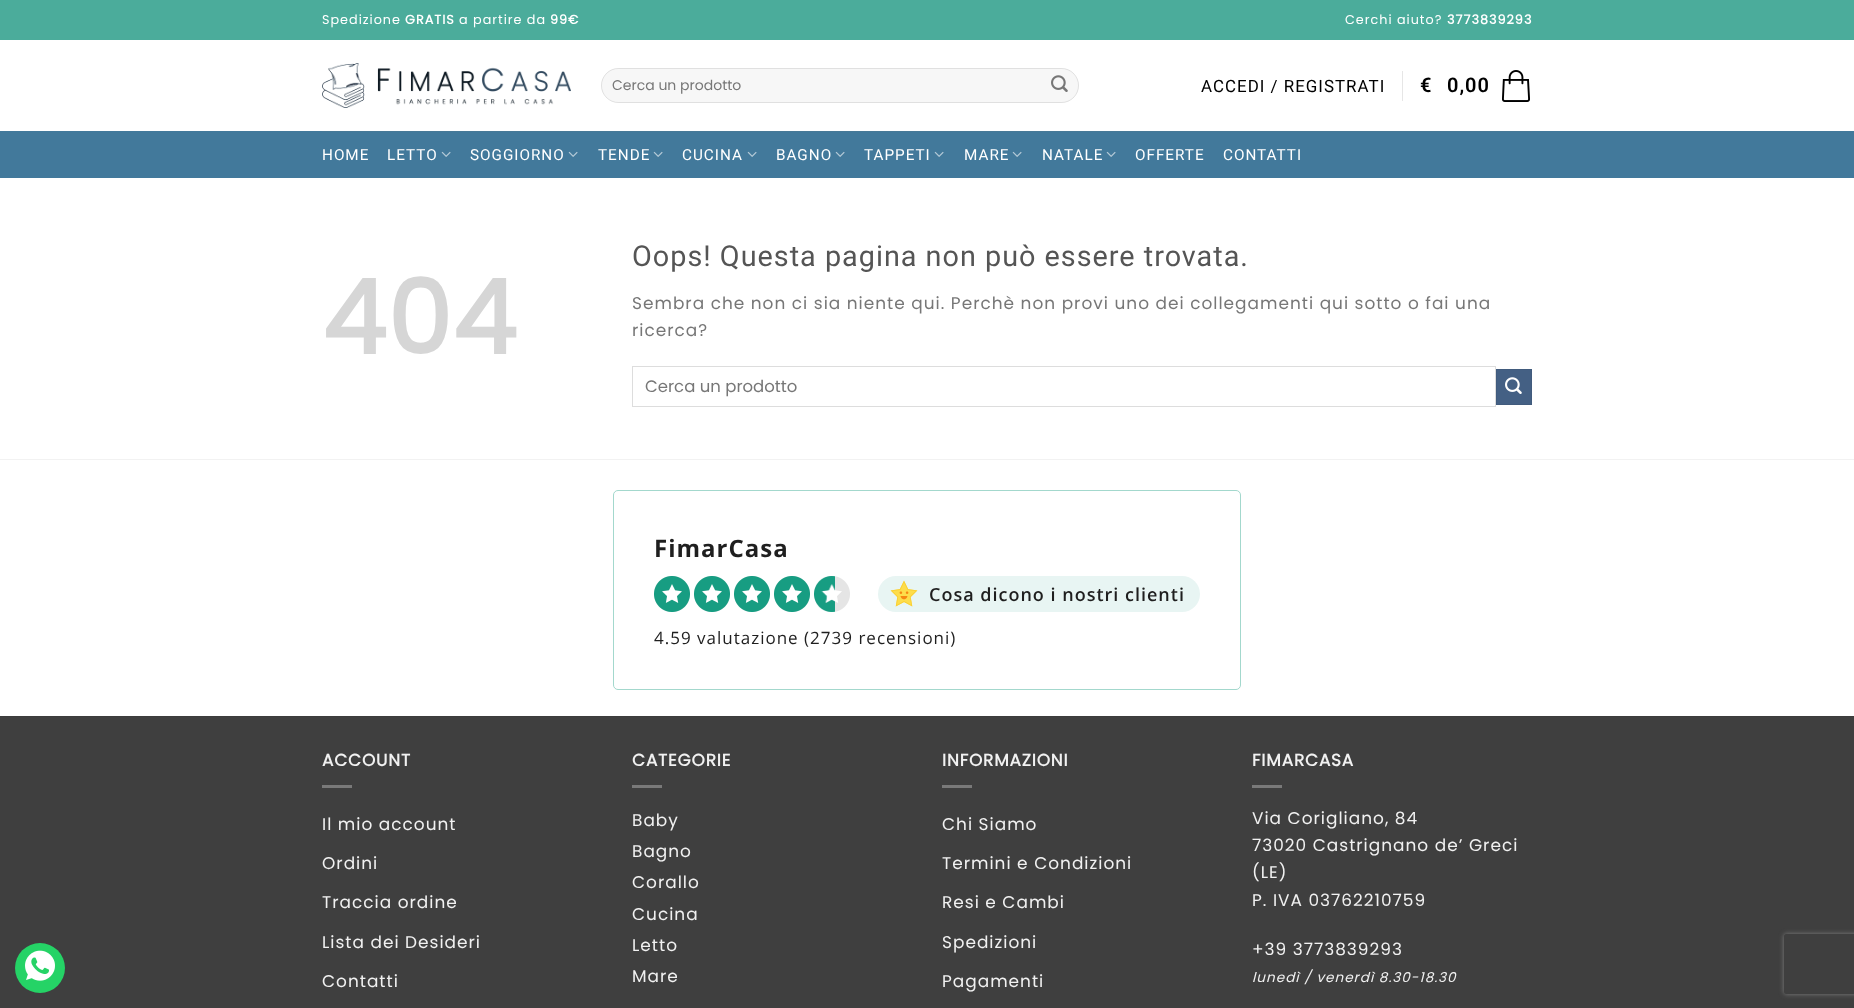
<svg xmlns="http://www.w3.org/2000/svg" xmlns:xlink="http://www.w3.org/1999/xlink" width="1854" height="1008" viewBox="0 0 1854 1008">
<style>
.cls-1{font:12.75px Poppins;letter-spacing:1px;fill:#ffffff}
.cls-2{font:bold 12.75px Poppins;letter-spacing:1px;fill:#ffffff}
.cls-3{font:14px Poppins;fill:#777777}
.cls-4{font:16.95px Roboto;letter-spacing:1px;fill:#000000}
.cls-5{font:600 20px Roboto;letter-spacing:1px;fill:#000000}
.cls-6{font:15.25px Roboto;letter-spacing:1px;fill:#ffffff}
.cls-7{font:bold 102px Poppins;letter-spacing:1px;fill:#d6d6d6}
.cls-8{font:28.8px Roboto;letter-spacing:1px;fill:#555555}
.cls-9{font:16.95px Poppins;letter-spacing:1px;fill:#777777}
.cls-10{font:16.5px Poppins;fill:#777777}
.cls-11{font:bold 24px Open Sans;letter-spacing:1px;fill:#1f1f1f}
.cls-12{font:600 18px Open Sans;letter-spacing:1px;fill:#1f1f1f}
.cls-13{font:17px Open Sans;letter-spacing:1px;fill:#1f1f1f}
.cls-14{font:bold 16.95px Poppins;letter-spacing:0.8px;fill:#f1f1f1}
.cls-15{font:16.95px Poppins;letter-spacing:1px;fill:#f1f1f1}
.cls-16{font:italic 13.6px Poppins;letter-spacing:1px;fill:#f1f1f1}
</style>
<defs>
<clipPath id="clip1"><path d="M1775 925H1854V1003H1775ZM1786 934H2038C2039 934 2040 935 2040 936V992C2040 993 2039 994 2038 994H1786C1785 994 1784 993 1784 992V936C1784 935 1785 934 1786 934Z" clip-rule="evenodd"/></clipPath>
</defs>
<rect width="100%" height="100%" fill="#ffffff"/>
<rect fill="#3f3f3f" x="0" y="717" width="1854" height="291"/>
<circle fill="#25d366" cx="40" cy="968" r="25"/>
<image xlink:href="image0.png" x="25" y="950" width="30" height="31"/>
<rect fill="#4bac9b" x="0" y="0" width="1854" height="40"/>
<image xlink:href="image1.png" x="322" y="63" width="249" height="45"/>
<rect fill="#f7f7f7" x="601" y="68" width="478" height="35" rx="17.5"/>
<rect fill="none" stroke="#000000" stroke-opacity="0.09" x="601.5" y="68.5" width="477" height="34" rx="17"/>
<image xlink:href="image2.png" x="1051" y="75" width="17" height="17"/>
<rect fill="#e6e6e6" x="1402" y="71" width="1" height="30"/>
<image xlink:href="image3.png" x="1502" y="70" width="28" height="32"/>
<rect fill="#42799b" x="0" y="131" width="1854" height="47"/>
<rect fill="#477997" x="322" y="131" width="1210" height="1"/>
<image xlink:href="image4.png" x="441" y="151" width="10" height="6"/>
<image xlink:href="image4.png" x="568" y="151" width="10" height="6"/>
<image xlink:href="image4.png" x="653" y="151" width="10" height="6"/>
<image xlink:href="image4.png" x="747" y="151" width="10" height="6"/>
<image xlink:href="image4.png" x="835" y="151" width="10" height="6"/>
<image xlink:href="image4.png" x="934" y="151" width="10" height="6"/>
<image xlink:href="image4.png" x="1012" y="151" width="10" height="6"/>
<image xlink:href="image4.png" x="1106" y="151" width="10" height="6"/>
<rect fill="none" stroke="#dddddd" x="632.5" y="366.5" width="863" height="40"/>
<rect fill="#446084" stroke="#415b7d" x="1496.5" y="369.5" width="35" height="35"/>
<image xlink:href="image5.png" x="1505" y="377" width="17" height="17"/>
<rect fill="#f2f2f2" x="0" y="459" width="1854" height="1"/>
<rect fill="none" stroke="#a3d8cd" x="613.5" y="490.5" width="627" height="199" rx="4.5"/>
<image xlink:href="image6.png" x="654" y="576" width="36" height="36"/>
<image xlink:href="image7.png" x="654" y="576" width="36" height="36"/>
<image xlink:href="image6.png" x="694" y="576" width="36" height="36"/>
<image xlink:href="image7.png" x="694" y="576" width="36" height="36"/>
<image xlink:href="image6.png" x="734" y="576" width="36" height="36"/>
<image xlink:href="image7.png" x="734" y="576" width="36" height="36"/>
<image xlink:href="image6.png" x="774" y="576" width="36" height="36"/>
<image xlink:href="image7.png" x="774" y="576" width="36" height="36"/>
<image xlink:href="image6.png" x="814" y="576" width="36" height="36"/>
<image xlink:href="image8.png" x="814" y="576" width="21" height="36"/>
<rect fill="#e8f5f3" x="878" y="576" width="322" height="36" rx="18"/>
<image xlink:href="image9.png" x="890" y="580" width="28" height="27"/>
<rect fill="#3c3c3c" x="0" y="716" width="1854" height="1"/>
<rect fill="#797979" x="322" y="785" width="30" height="3"/>
<rect fill="#797979" x="632" y="785" width="30" height="3"/>
<rect fill="#797979" x="942" y="785" width="30" height="3"/>
<rect fill="#797979" x="1252" y="785" width="30" height="3"/>
<g clip-path="url(#clip1)">
<rect fill="#808080" filter="blur(2.5px)" x="1784" y="934" width="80" height="60" rx="2"/>
</g>
<text class="cls-1" x="322" y="24">Spedizione</text>
<text class="cls-2" x="405" y="24">GRATIS</text>
<text class="cls-1" x="459" y="24">a partire da</text>
<text class="cls-2" x="550" y="24">99€</text>
<text class="cls-1" x="1345" y="24">Cerchi aiuto?</text>
<text class="cls-2" x="1447" y="24">3773839293</text>
<text class="cls-3" x="612" y="90">Cerca un prodotto</text>
<text class="cls-4" x="1201" y="92">ACCEDI / REGISTRATI</text>
<text class="cls-5" x="1420" y="92">€</text>
<text class="cls-5" x="1447" y="92">0,00</text>
<text class="cls-6" x="322" y="160">HOME</text>
<text class="cls-6" x="387" y="160">LETTO</text>
<text class="cls-6" x="470" y="160">SOGGIORNO</text>
<text class="cls-6" x="598" y="160">TENDE</text>
<text class="cls-6" x="682" y="160">CUCINA</text>
<text class="cls-6" x="776" y="160">BAGNO</text>
<text class="cls-6" x="864" y="160">TAPPETI</text>
<text class="cls-6" x="964" y="160">MARE</text>
<text class="cls-6" x="1042" y="160">NATALE</text>
<text class="cls-6" x="1135" y="160">OFFERTE</text>
<text class="cls-6" x="1223" y="160">CONTATTI</text>
<text class="cls-7" x="322" y="354">404</text>
<text class="cls-8" x="632" y="266">Oops! Questa pagina non può essere trovata.</text>
<text class="cls-9"><tspan x="632" y="309">Sembra che non ci sia niente qui. Perchè non provi uno dei collegamenti qui sotto o fai una</tspan><tspan x="632" y="336">ricerca?</tspan></text>
<text class="cls-10" x="645" y="392">Cerca un prodotto</text>
<text class="cls-11" x="654" y="557">FimarCasa</text>
<text class="cls-12" x="929" y="601">Cosa dicono i nostri clienti</text>
<text class="cls-13" x="654" y="644">4.59 valutazione (2739 recensioni)</text>
<text class="cls-14" x="322" y="766">ACCOUNT</text>
<text class="cls-15" x="322" y="830">Il mio account</text>
<text class="cls-15" x="322" y="869">Ordini</text>
<text class="cls-15" x="322" y="908">Traccia ordine</text>
<text class="cls-15" x="322" y="948">Lista dei Desideri</text>
<text class="cls-15" x="322" y="987">Contatti</text>
<text class="cls-14" x="632" y="766">CATEGORIE</text>
<text class="cls-15"><tspan x="632" y="826">Baby</tspan><tspan x="632" y="857">Bagno</tspan><tspan x="632" y="888">Corallo</tspan><tspan x="632" y="920">Cucina</tspan><tspan x="632" y="951">Letto</tspan><tspan x="632" y="982">Mare</tspan></text>
<text class="cls-14" x="942" y="766">INFORMAZIONI</text>
<text class="cls-15" x="942" y="830">Chi Siamo</text>
<text class="cls-15" x="942" y="869">Termini e Condizioni</text>
<text class="cls-15" x="942" y="908">Resi e Cambi</text>
<text class="cls-15" x="942" y="948">Spedizioni</text>
<text class="cls-15" x="942" y="987">Pagamenti</text>
<text class="cls-14" x="1252" y="766">FIMARCASA</text>
<text class="cls-15"><tspan x="1252" y="824">Via Corigliano, 84</tspan><tspan x="1252" y="851">73020 Castrignano de’ Greci</tspan><tspan x="1252" y="878">(LE)</tspan><tspan x="1252" y="906">P. IVA 03762210759</tspan></text>
<text class="cls-15" x="1252" y="955">+39 3773839293</text>
<text class="cls-16" x="1252" y="982">lunedì / venerdì 8.30-18.30</text>
</svg>
